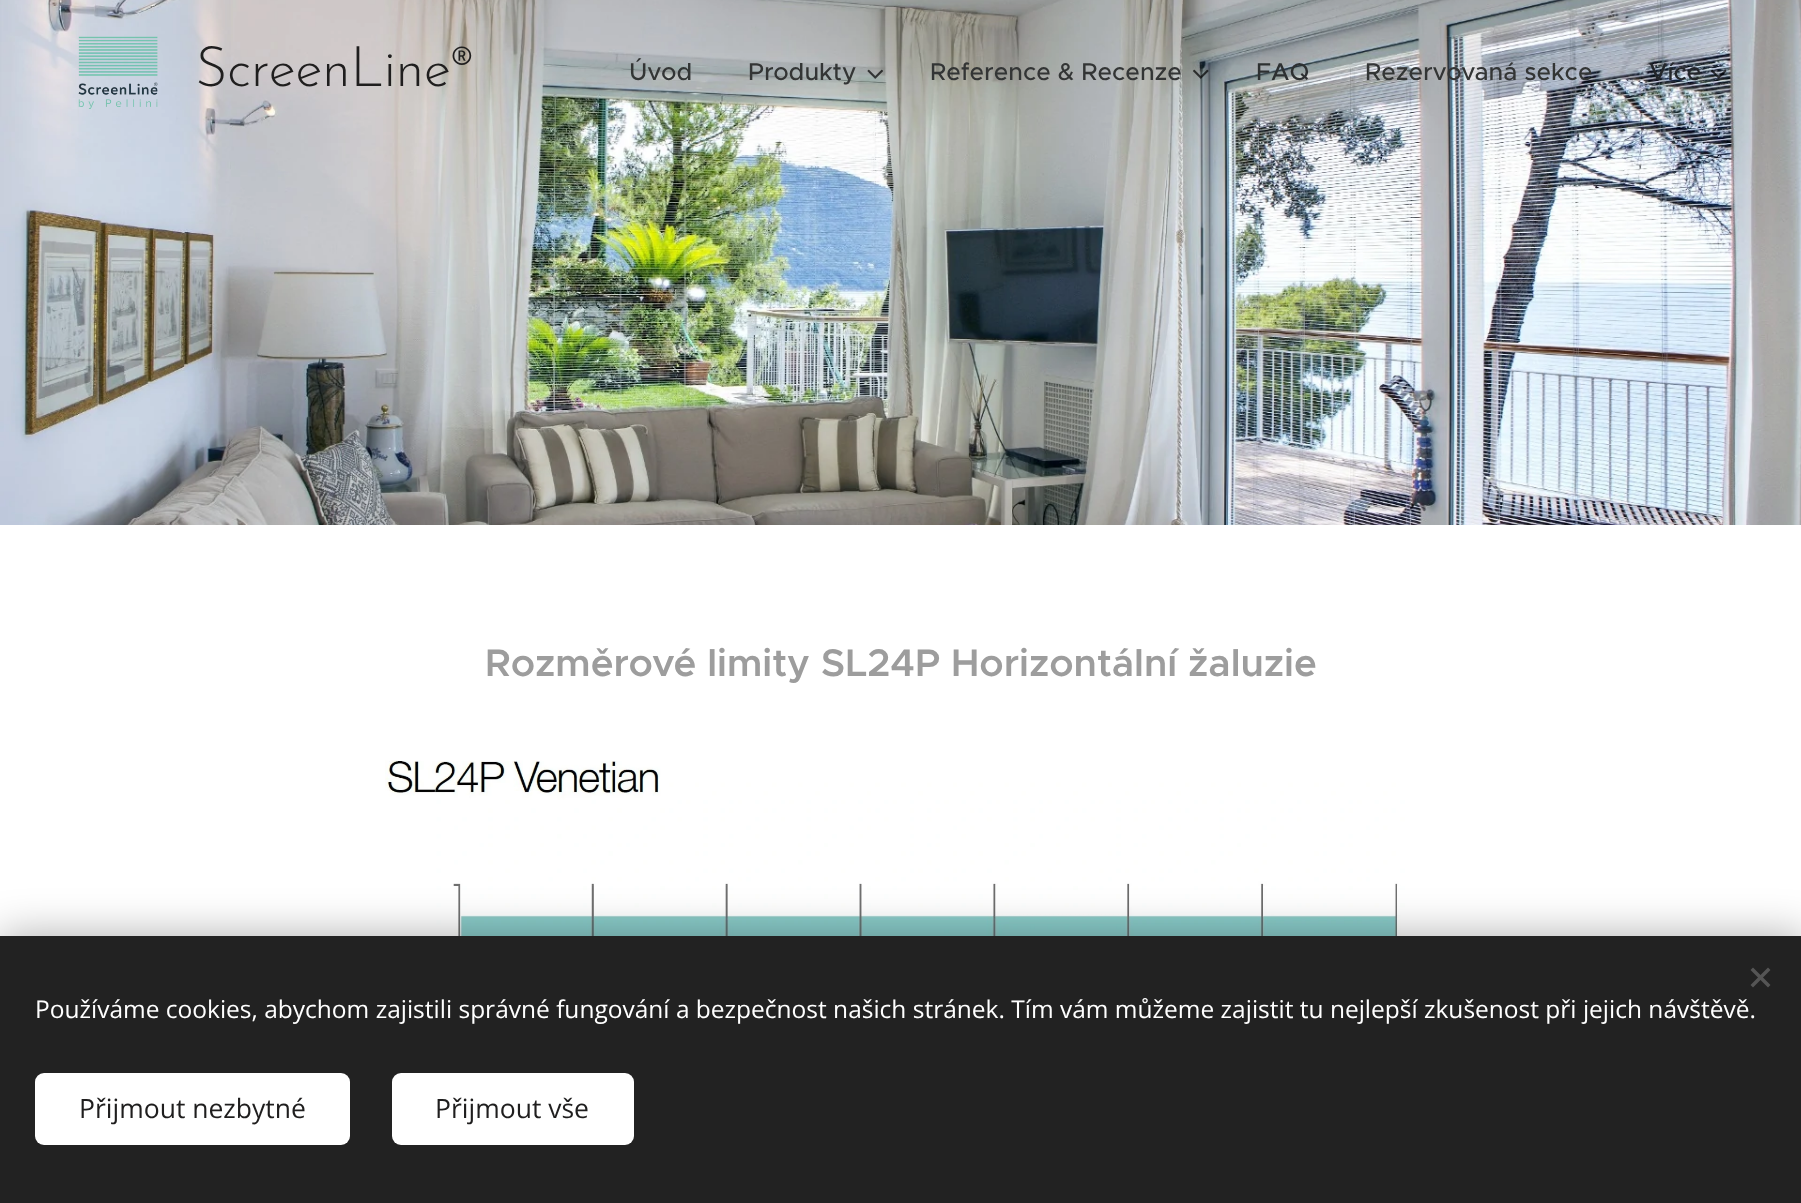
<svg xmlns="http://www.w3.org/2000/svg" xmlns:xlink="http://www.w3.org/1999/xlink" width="1801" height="1203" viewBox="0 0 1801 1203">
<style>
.cls-1{font:300 56px Josefin Sans;letter-spacing:-0.5px;fill:#1f1e1e}
.cls-2{font:500 24.5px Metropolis;fill:#333535}
.cls-3{font:500 24.5px Metropolis;fill:#2d3031}
.cls-4{font:500 24.5px Metropolis;fill:#23262a}
.cls-5{font:600 38.5px Metropolis;fill:#9d9d9d}
.cls-6{font:24.5px Open Sans;fill:#ffffff}
.cls-7{font:26.5px Open Sans;fill:#1f1e1e}
</style>
<rect width="100%" height="100%" fill="#ffffff"/>
<image xlink:href="image4.png" x="0" y="0" width="1801" height="525"/>
<image xlink:href="image0.png" x="78" y="36" width="80" height="73"/>
<image xlink:href="image1.png" x="867" y="69" width="16" height="10"/>
<image xlink:href="image2.png" x="1193" y="69" width="16" height="10"/>
<image xlink:href="image3.png" x="1711" y="69" width="16" height="10"/>
<image xlink:href="image5.png" x="385" y="760" width="1024" height="176"/>
<rect fill="#000000" fill-opacity="0.33" filter="blur(22px)" x="0" y="936" width="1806" height="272"/>
<rect fill="#222222" x="0" y="936" width="1801" height="267"/>
<path fill="#555555" d="M1750.5 985L1768 967.5L1770.5 970L1753 987.5Z"/>
<path fill="#555555" d="M1753 967.5L1770.5 985L1768 987.5L1750.5 970Z"/>
<rect fill="#ffffff" x="35" y="1073" width="315" height="72" rx="9"/>
<rect fill="#ffffff" x="392" y="1073" width="242" height="72" rx="9"/>
<text class="cls-1" x="195" y="86">ScreenLine®</text>
<text class="cls-2" x="629" y="80">Úvod</text>
<text class="cls-2" x="748" y="80">Produkty</text>
<text class="cls-2" x="930" y="80">Reference &amp; Recenze</text>
<text class="cls-3" x="1256" y="80">FAQ</text>
<text class="cls-2" x="1365" y="80">Rezervovaná sekce</text>
<text class="cls-4" x="1649" y="80">Více</text>
<text class="cls-5" x="485" y="676">Rozměrové limity SL24P Horizontální žaluzie</text>
<text class="cls-6" x="35" y="1018">Používáme cookies, abychom zajistili správné fungování a bezpečnost našich stránek. Tím vám můžeme zajistit tu nejlepší zkušenost při jejich návštěvě.</text>
<text class="cls-7" x="79" y="1118">Přijmout nezbytné</text>
<text class="cls-7" x="435" y="1118">Přijmout vše</text>
</svg>
